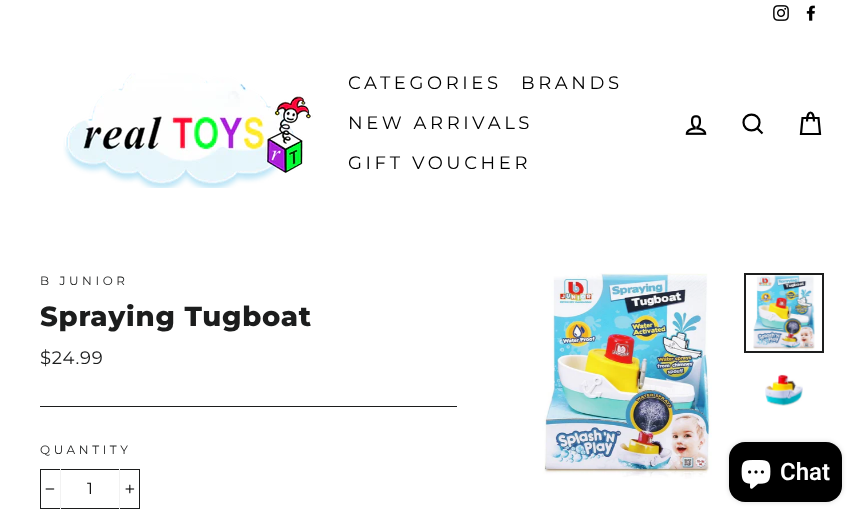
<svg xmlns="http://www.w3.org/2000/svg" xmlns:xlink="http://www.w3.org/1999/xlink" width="864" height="523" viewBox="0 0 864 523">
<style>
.cls-1{font:18px Montserrat;letter-spacing:3.6px;fill:#000000}
.cls-2{font:12px Montserrat;letter-spacing:3.6px;fill:#1c1d1d}
.cls-3{font:800 27.5px Montserrat;letter-spacing:0.75px;fill:#1c1d1d}
.cls-4{font:18px Montserrat;letter-spacing:0.75px;fill:#1c1d1d}
.cls-5{font:16px Montserrat;letter-spacing:0.75px;fill:#000000}
.cls-6{font:600 24px Roboto;fill:#ffffff}
</style>
<rect width="100%" height="100%" fill="#ffffff"/>
<image xlink:href="image0.png" x="773" y="5" width="16" height="16"/>
<image xlink:href="image1.png" x="806" y="5" width="9" height="16"/>
<image xlink:href="image2.png" x="63" y="73" width="250" height="115"/>
<image xlink:href="image3.png" x="685" y="115" width="22" height="20"/>
<path fill="none" stroke="#000000" stroke-width="2.2" d="M759.5 122.5C759.5 133 743.5 133 743.5 122.5C743.5 112 759.5 112 759.5 122.5ZM762.5 133.5L757.5 128.5"/>
<path fill="none" stroke="#000000" stroke-width="2.2" d="M807 121.5C807 109.5 814 109.5 814 121.5M802.5 118H818.5L820 134H801Z"/>
<rect fill="#1c1d1d" x="40" y="406" width="417" height="1"/>
<rect fill="none" stroke="#1c1d1d" x="40.5" y="469.5" width="99" height="39"/>
<rect fill="#f2f2f2" x="60" y="469" width="1" height="40"/>
<image xlink:href="image4.png" x="45" y="488" width="10" height="2"/>
<rect fill="#f2f2f2" x="119" y="469" width="1" height="40"/>
<image xlink:href="image5.png" x="125" y="484" width="10" height="10"/>
<image xlink:href="image6.png" x="542" y="273" width="170" height="206"/>
<rect fill="none" stroke="#1c1d1d" stroke-width="2" x="745" y="274" width="78" height="78"/>
<image xlink:href="image7.png" x="753" y="275" width="62" height="76"/>
<image xlink:href="image8.png" x="765" y="374" width="38" height="32"/>
<rect fill="#000000" fill-opacity="0.15" filter="blur(2.5px)" x="729" y="442" width="113" height="60" rx="16"/>
<rect fill="#000000" x="729" y="442" width="113" height="60" rx="16"/>
<image xlink:href="image9.png" x="741" y="460" width="30" height="29"/>
<text class="cls-1" x="348" y="89">CATEGORIES</text>
<text class="cls-1" x="521" y="89">BRANDS</text>
<text class="cls-1" x="348" y="129">NEW ARRIVALS</text>
<text class="cls-1" x="348" y="169">GIFT VOUCHER</text>
<text class="cls-2" x="40" y="285">B JUNIOR</text>
<text class="cls-3" x="40" y="326">Spraying Tugboat</text>
<text class="cls-4" x="40" y="364">$24.99</text>
<text class="cls-2" x="40" y="454">QUANTITY</text>
<text class="cls-5" x="87" y="494">1</text>
<text class="cls-6" x="780" y="480">Chat</text>
</svg>
